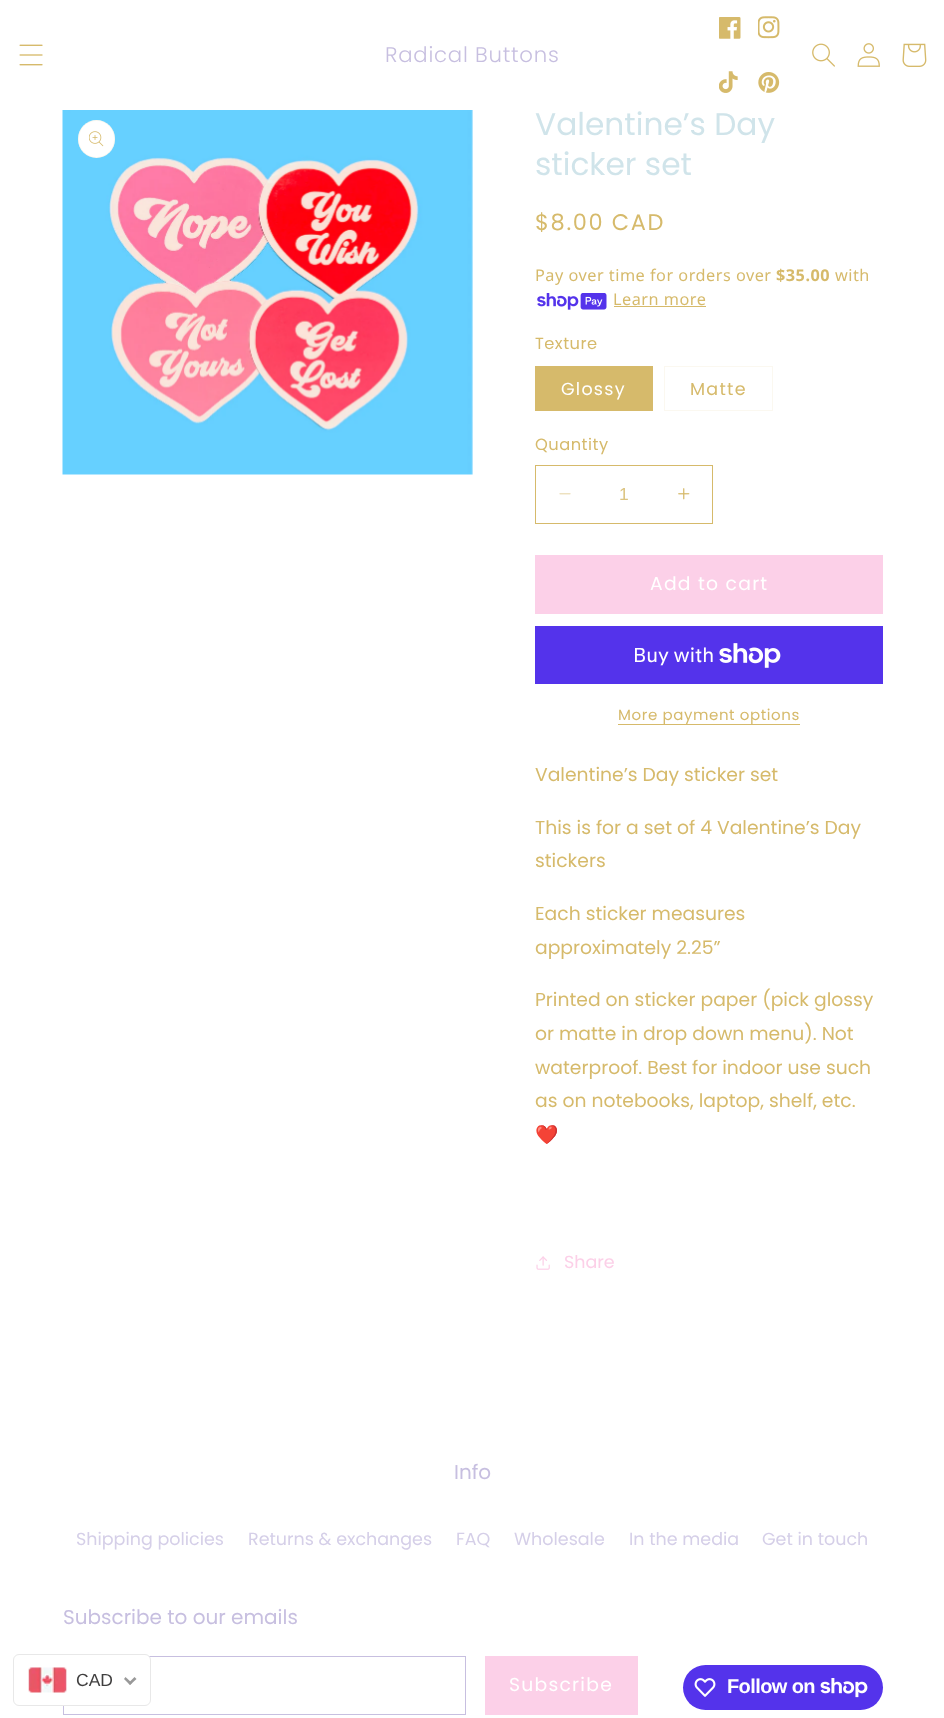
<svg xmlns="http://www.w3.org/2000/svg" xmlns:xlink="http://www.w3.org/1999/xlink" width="944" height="1718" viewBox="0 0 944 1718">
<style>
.cls-1{font:300 21.25px Poppins;letter-spacing:0.75px;fill:#c7bfe0}
.cls-2{font:31.25px Poppins;fill:#d0e4ea}
.cls-3{font:22.5px Poppins;letter-spacing:1.6px;fill:#d6ba6b}
.cls-4{font:16.25px Noto Sans;letter-spacing:0.5px;fill:#d6ba6b}
.cls-5{font:bold 16.25px Noto Sans;letter-spacing:0.5px;fill:#d6ba6b}
.cls-6{font:16.25px Poppins;letter-spacing:0.5px;fill:#d6ba6b}
.cls-7{font:17.5px Poppins;letter-spacing:1.25px;fill:#ffffff}
.cls-8{font:17.5px Poppins;letter-spacing:1.25px;fill:#d6ba6b}
.cls-9{font:17.5px Liberation Sans;fill:#dcc481}
.cls-10{font:18.75px Poppins;letter-spacing:1.25px;fill:#ffffff}
.cls-11{font:20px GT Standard;fill:#ffffff}
.cls-12{font:15px Poppins;letter-spacing:0.6px;fill:#d6ba6b}
.cls-13{font:18.75px Poppins;fill:#d6ba6b}
.cls-14{font:18.75px Noto Color Emoji;fill:#d6ba6b}
.cls-15{font:17.5px Poppins;fill:#fcd0e8}
.cls-16{font:20px Poppins;fill:#c7bfe0}
.cls-17{font:17.5px Poppins;fill:#d5cfe8}
.cls-18{font:bold 20px Liberation Sans;letter-spacing:-0.6px;fill:#ffffff}
.cls-19{font:17.5px Liberation Sans;fill:#403f3f}
</style>
<rect width="100%" height="100%" fill="#ffffff"/>
<image xlink:href="image0.png" x="19" y="44" width="24" height="22"/>
<image xlink:href="image1.png" x="719" y="17" width="22" height="22"/>
<image xlink:href="image2.png" x="758" y="16" width="22" height="23"/>
<image xlink:href="image3.png" x="719" y="71" width="19" height="22"/>
<image xlink:href="image4.png" x="758" y="72" width="22" height="21"/>
<image xlink:href="image5.png" x="812" y="43" width="23" height="24"/>
<image xlink:href="image6.png" x="857" y="43" width="23" height="24"/>
<image xlink:href="image7.png" x="902" y="43" width="25" height="24"/>
<image xlink:href="image8.png" x="62" y="110" width="411" height="365"/>
<rect fill="#ffffff" x="78" y="120" width="37" height="38" rx="18.5"/>
<rect fill="none" stroke="#d6ba6b" stroke-opacity="0.1" x="78.5" y="120.5" width="36" height="37" rx="18"/>
<image xlink:href="image9.png" x="89" y="131" width="15" height="16"/>
<image xlink:href="image10.png" x="537" y="293" width="70" height="17"/>
<rect fill="#d6ba6b" x="614" y="306" width="92" height="1"/>
<rect fill="#d6ba6b" x="535" y="366" width="118" height="45"/>
<rect fill="none" stroke="#fbf8f0" x="664.5" y="366.5" width="108" height="44"/>
<image xlink:href="image11.png" x="559" y="493" width="12" height="2"/>
<image xlink:href="image12.png" x="678" y="488" width="12" height="12"/>
<rect fill="none" stroke="#d6ba6b" x="535.5" y="465.5" width="177" height="58"/>
<rect fill="#fcd0e8" x="535" y="555" width="348" height="59"/>
<rect fill="#5433eb" x="535" y="626" width="348" height="58"/>
<image xlink:href="image13.png" x="719" y="643" width="62" height="25"/>
<rect fill="#d6ba6b" x="618" y="724" width="182" height="1"/>
<image xlink:href="image14.png" x="536" y="1256" width="14" height="14"/>
<rect fill="none" stroke="#c7bfe0" x="63.5" y="1656.5" width="402" height="58"/>
<rect fill="#fcd0e8" x="485" y="1656" width="153" height="59"/>
<rect fill="#5433eb" x="683" y="1665" width="200" height="45" rx="22.5"/>
<image xlink:href="image15.png" x="694" y="1678" width="22" height="19"/>
<image xlink:href="image16.png" x="820" y="1678" width="48" height="20"/>
<rect fill="#ffffff" stroke="#e8e8e8" x="13.5" y="1654.5" width="137" height="51" rx="5.5"/>
<image xlink:href="image17.png" x="28" y="1667" width="39" height="26"/>
<path fill="#999999" d="M134.5 1677L136.5 1679L130 1685L128.5 1683Z"/>
<path fill="#999999" d="M125.5 1677L132 1683L130 1685L124 1679Z"/>
<text class="cls-1" x="385" y="62">Radical Buttons</text>
<text class="cls-2"><tspan x="535" y="135">Valentine’s Day</tspan><tspan x="535" y="175">sticker set</tspan></text>
<text class="cls-3" x="535" y="230">$8.00 CAD</text>
<text class="cls-4" x="535" y="281">Pay over time for orders over</text>
<text class="cls-5" x="776" y="281">$35.00</text>
<text class="cls-4" x="835" y="281">with</text>
<text class="cls-4" x="613" y="305">Learn more</text>
<text class="cls-6" x="535" y="349">Texture</text>
<text class="cls-7" x="561" y="395">Glossy</text>
<text class="cls-8" x="690" y="395">Matte</text>
<text class="cls-6" x="535" y="450">Quantity</text>
<text class="cls-9" x="619" y="500">1</text>
<text class="cls-10" x="650" y="590">Add to cart</text>
<text class="cls-11" x="633" y="662">Buy with</text>
<text class="cls-12" x="618" y="720">More payment options</text>
<text class="cls-13" x="535" y="781">Valentine’s Day sticker set</text>
<text class="cls-13"><tspan x="535" y="834">This is for a set of 4 Valentine’s Day</tspan><tspan x="535" y="867">stickers</tspan></text>
<text class="cls-13"><tspan x="535" y="920">Each sticker measures</tspan><tspan x="535" y="954">approximately 2.25”</tspan></text>
<text class="cls-13"><tspan x="535" y="1006">Printed on sticker paper (pick glossy</tspan><tspan x="535" y="1040">or matte in drop down menu). Not</tspan><tspan x="535" y="1074">waterproof. Best for indoor use such</tspan><tspan x="535" y="1107">as on notebooks, laptop, shelf, etc.</tspan></text>
<text class="cls-14" x="535" y="1141">❤️</text>
<text class="cls-15" x="564" y="1268">Share</text>
<text class="cls-16" x="454" y="1479">Info</text>
<text class="cls-17" x="76" y="1545">Shipping policies</text>
<text class="cls-17" x="248" y="1545">Returns &amp; exchanges</text>
<text class="cls-17" x="456" y="1545">FAQ</text>
<text class="cls-17" x="514" y="1545">Wholesale</text>
<text class="cls-17" x="629" y="1545">In the media</text>
<text class="cls-17" x="762" y="1545">Get in touch</text>
<text class="cls-16" x="63" y="1624">Subscribe to our emails</text>
<text class="cls-10" x="509" y="1691">Subscribe</text>
<text class="cls-18" x="727" y="1693">Follow on</text>
<text class="cls-19" x="76" y="1686">CAD</text>
</svg>
